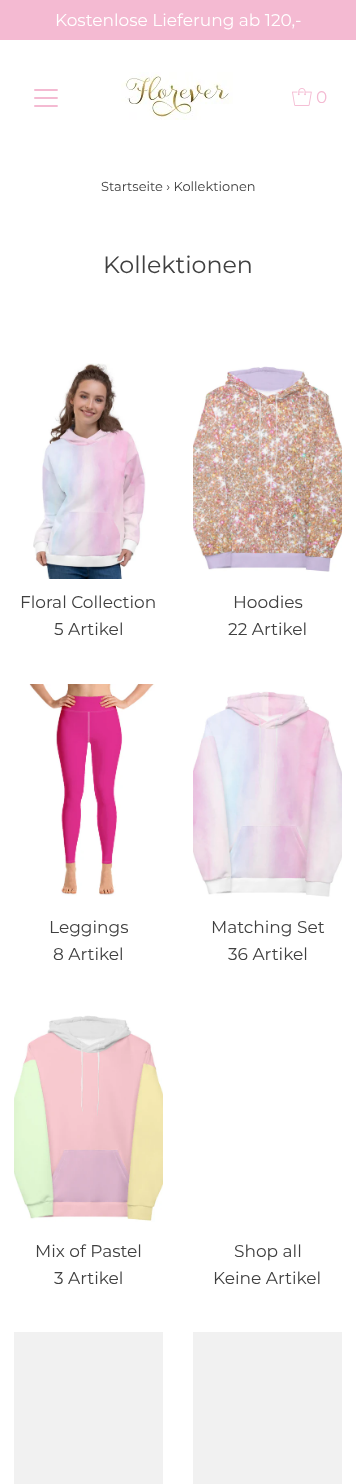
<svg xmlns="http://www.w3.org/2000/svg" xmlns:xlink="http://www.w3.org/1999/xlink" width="356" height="1484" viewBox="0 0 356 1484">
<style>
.cls-1{font:17px Montserrat;fill:#ffffff}
.cls-2{font:17px Montserrat;fill:#f4bad2}
.cls-3{font:13px Montserrat;fill:#404040}
.cls-4{font:23.75px Montserrat;fill:#404040}
.cls-5{font:17px Montserrat;fill:#404040}
</style>
<rect width="100%" height="100%" fill="#ffffff"/>
<rect fill="#f4bad2" x="0" y="0" width="356" height="40"/>
<image xlink:href="image0.png" x="34" y="89" width="24" height="18"/>
<image xlink:href="image1.png" x="121" y="72" width="112" height="48"/>
<image xlink:href="image2.png" x="292" y="88" width="20" height="18"/>
<image xlink:href="image3.png" x="33" y="363" width="113" height="216"/>
<image xlink:href="image4.png" x="193" y="366" width="149" height="206"/>
<image xlink:href="image5.png" x="29" y="684" width="126" height="212"/>
<image xlink:href="image6.png" x="193" y="691" width="149" height="206"/>
<image xlink:href="image7.png" x="14" y="1015" width="149" height="207"/>
<rect fill="#f1f1f1" x="14" y="1332" width="149" height="152"/>
<rect fill="#f1f1f1" x="193" y="1332" width="149" height="152"/>
<text class="cls-1" x="55" y="26">Kostenlose Lieferung ab 120,-</text>
<text class="cls-2" x="316" y="103">0</text>
<text class="cls-3" x="101" y="191">Startseite › Kollektionen</text>
<text class="cls-4" x="103" y="273">Kollektionen</text>
<text class="cls-5" x="20" y="608">Floral Collection</text>
<text class="cls-5" x="54" y="635">5 Artikel</text>
<text class="cls-5" x="233" y="608">Hoodies</text>
<text class="cls-5" x="228" y="635">22 Artikel</text>
<text class="cls-5" x="49" y="933">Leggings</text>
<text class="cls-5" x="53" y="960">8 Artikel</text>
<text class="cls-5" x="211" y="933">Matching Set</text>
<text class="cls-5" x="228" y="960">36 Artikel</text>
<text class="cls-5" x="35" y="1257">Mix of Pastel</text>
<text class="cls-5" x="54" y="1284">3 Artikel</text>
<text class="cls-5" x="234" y="1257">Shop all</text>
<text class="cls-5" x="213" y="1284">Keine Artikel</text>
</svg>
